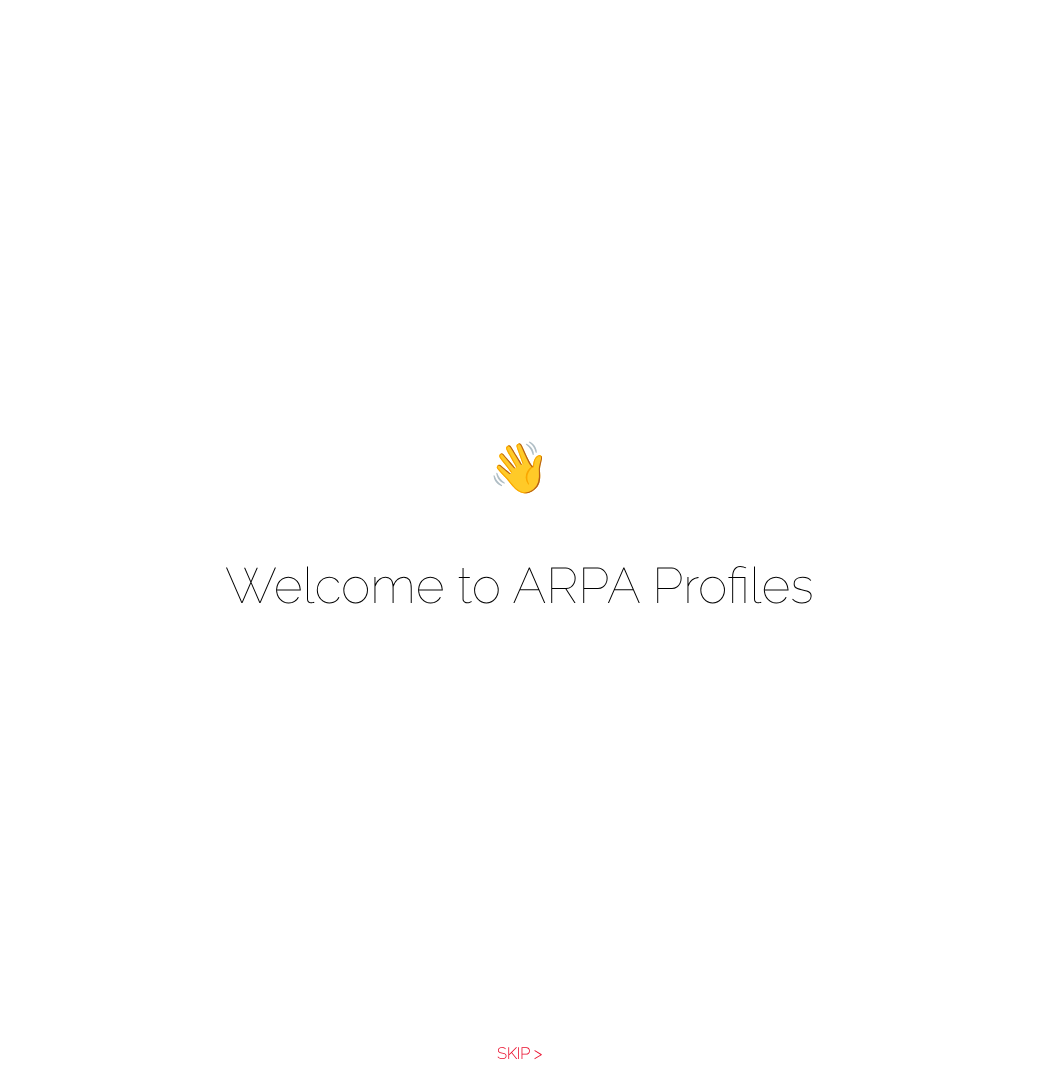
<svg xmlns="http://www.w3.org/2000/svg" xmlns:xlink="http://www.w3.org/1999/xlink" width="1038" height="1091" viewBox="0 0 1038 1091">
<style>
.cls-1{font:50px Noto Color Emoji;fill:#000000}
.cls-2{font:100 50px Raleway;fill:#000000}
.cls-3{font:bold 16px Raleway;fill:#ea0b2a}
</style>
<rect width="100%" height="100%" fill="#ffffff"/>
<text class="cls-1" x="488" y="485">👋</text>
<text class="cls-2" x="225" y="603">Welcome to ARPA Profiles</text>
<text class="cls-3" x="497" y="1059">SKIP &gt;</text>
</svg>
